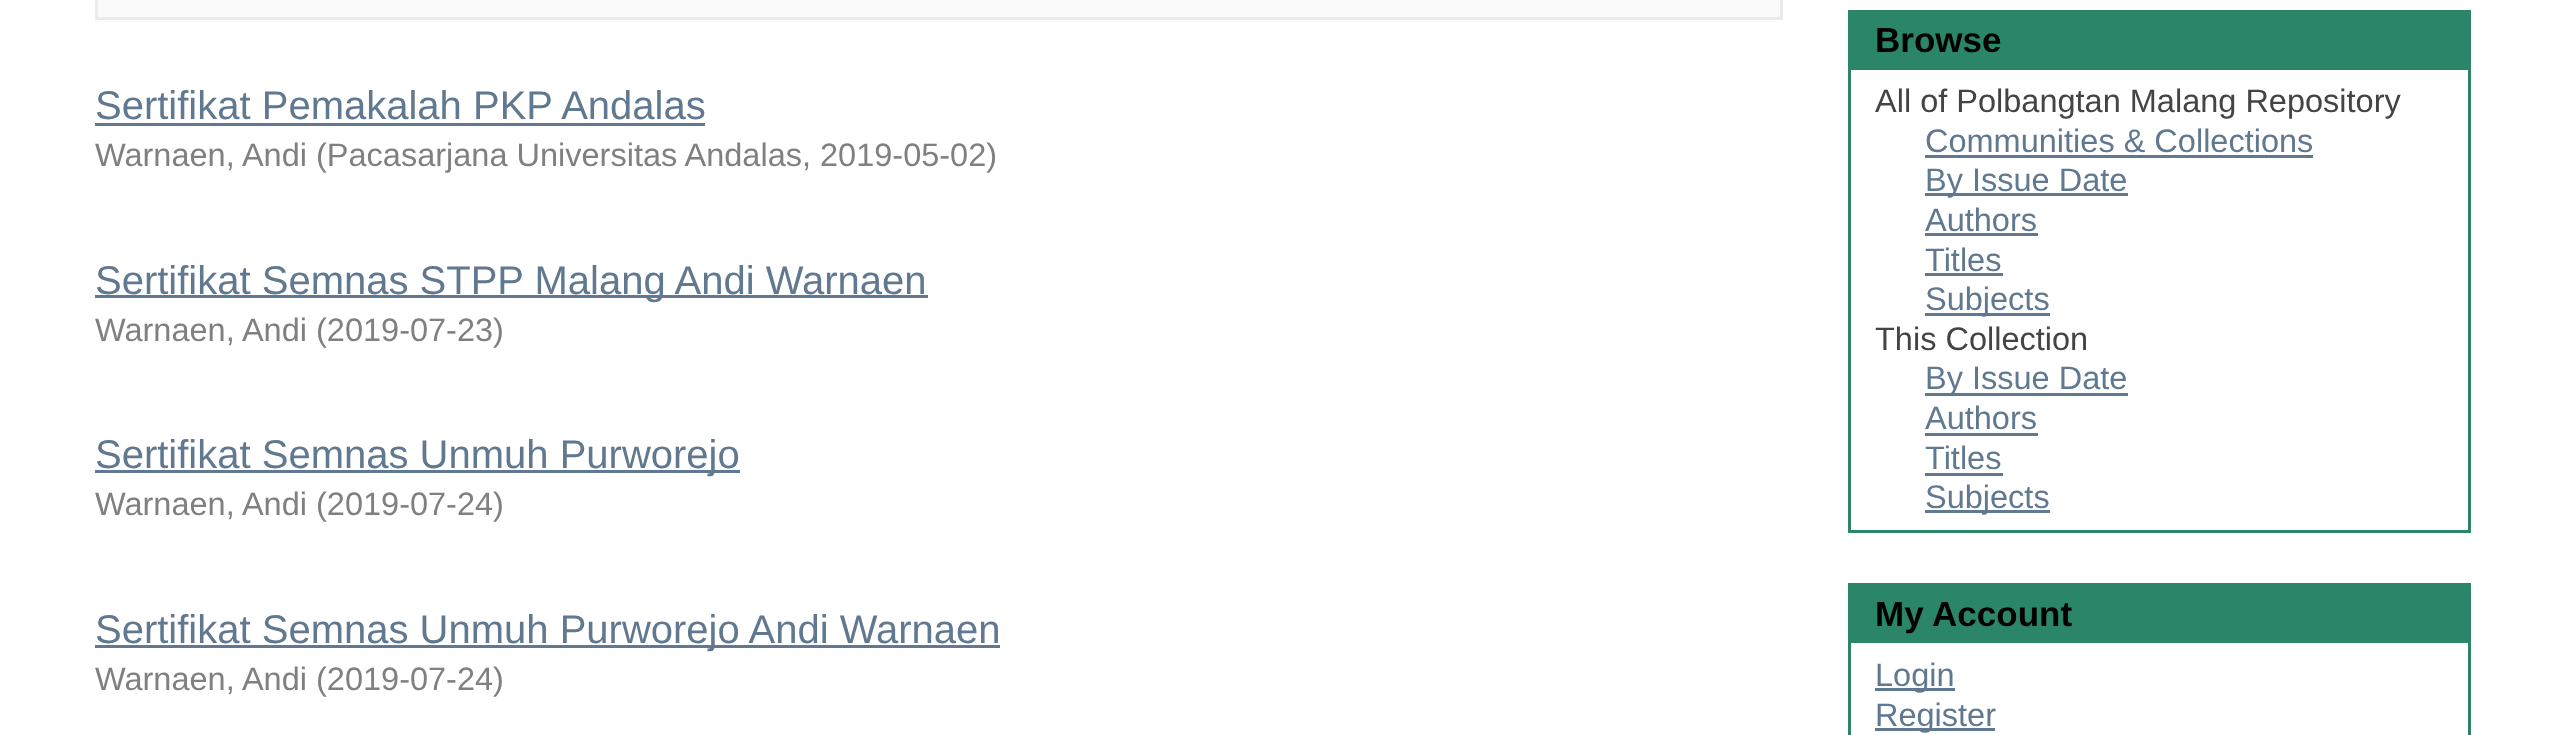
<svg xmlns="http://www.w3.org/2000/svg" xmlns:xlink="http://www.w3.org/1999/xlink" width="2563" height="735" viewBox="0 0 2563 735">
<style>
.cls-1{font:40px Liberation Sans;fill:#607890}
.cls-2{font:32.5px Liberation Sans;fill:#808080}
.cls-3{font:bold 35px Liberation Sans;fill:#000000}
.cls-4{font:32.5px Liberation Sans;fill:#444444}
.cls-5{font:32.5px Liberation Sans;fill:#607890}
</style>
<rect width="100%" height="100%" fill="#ffffff"/>
<rect fill="#fafafa" stroke="#ebebeb" stroke-width="3" x="96.5" y="-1.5" width="1685" height="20"/>
<rect fill="#607890" x="95" y="123" width="610" height="3"/>
<rect fill="#607890" x="95" y="295" width="833" height="3"/>
<rect fill="#607890" x="95" y="470" width="645" height="3"/>
<rect fill="#607890" x="95" y="645" width="905" height="3"/>
<rect fill="#2b8669" x="1848" y="10" width="620" height="60"/>
<rect fill="#2c856a" x="2468" y="10" width="3" height="523"/>
<rect fill="#2c856a" x="1848" y="530" width="622" height="3"/>
<rect fill="#2c856a" x="1848" y="70" width="3" height="463"/>
<rect fill="#607890" x="1925" y="155" width="388" height="3"/>
<rect fill="#607890" x="1925" y="193" width="203" height="3"/>
<rect fill="#607890" x="1925" y="233" width="113" height="3"/>
<rect fill="#607890" x="1925" y="273" width="78" height="3"/>
<rect fill="#607890" x="1925" y="313" width="125" height="3"/>
<rect fill="#607890" x="1925" y="393" width="203" height="3"/>
<rect fill="#607890" x="1925" y="433" width="113" height="3"/>
<rect fill="#607890" x="1925" y="473" width="78" height="3"/>
<rect fill="#607890" x="1925" y="510" width="125" height="3"/>
<rect fill="#2b8669" x="1848" y="583" width="620" height="60"/>
<rect fill="#2c856a" x="2468" y="583" width="3" height="152"/>
<rect fill="#2c856a" x="1848" y="643" width="3" height="92"/>
<rect fill="#607890" x="1875" y="688" width="80" height="3"/>
<rect fill="#607890" x="1875" y="728" width="120" height="3"/>
<text class="cls-1" x="95" y="119">Sertifikat Pemakalah PKP Andalas</text>
<text class="cls-2" x="95" y="166">Warnaen, Andi (Pacasarjana Universitas Andalas, 2019-05-02)</text>
<text class="cls-1" x="95" y="294">Sertifikat Semnas STPP Malang Andi Warnaen</text>
<text class="cls-2" x="95" y="341">Warnaen, Andi (2019-07-23)</text>
<text class="cls-1" x="95" y="468">Sertifikat Semnas Unmuh Purworejo</text>
<text class="cls-2" x="95" y="515">Warnaen, Andi (2019-07-24)</text>
<text class="cls-1" x="95" y="643">Sertifikat Semnas Unmuh Purworejo Andi Warnaen</text>
<text class="cls-2" x="95" y="690">Warnaen, Andi (2019-07-24)</text>
<text class="cls-3" x="1875" y="52">Browse</text>
<text class="cls-4" x="1875" y="112">All of Polbangtan Malang Repository</text>
<text class="cls-5"><tspan x="1925" y="152">Communities &amp; Collections</tspan><tspan x="1925" y="191">By Issue Date</tspan><tspan x="1925" y="231">Authors</tspan><tspan x="1925" y="271">Titles</tspan><tspan x="1925" y="310">Subjects</tspan></text>
<text class="cls-4" x="1875" y="350">This Collection</text>
<text class="cls-5"><tspan x="1925" y="389">By Issue Date</tspan><tspan x="1925" y="429">Authors</tspan><tspan x="1925" y="469">Titles</tspan><tspan x="1925" y="508">Subjects</tspan></text>
<text class="cls-3" x="1875" y="626">My Account</text>
<text class="cls-5"><tspan x="1875" y="686">Login</tspan><tspan x="1875" y="726">Register</tspan></text>
</svg>
